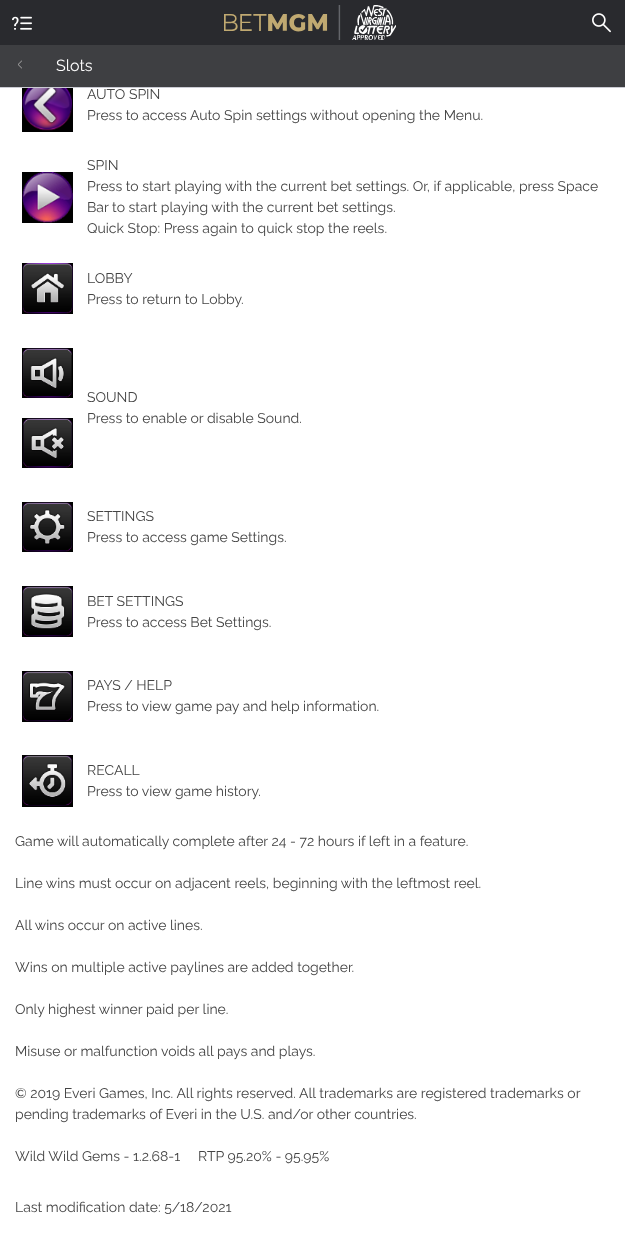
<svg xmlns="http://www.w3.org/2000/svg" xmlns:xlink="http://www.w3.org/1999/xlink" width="625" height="1238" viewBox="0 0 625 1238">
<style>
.cls-1{font:100 16px Raleway;fill:#ffffff}
.cls-2{font:100 14px Raleway;fill:#444444}
</style>
<rect width="100%" height="100%" fill="#ffffff"/>
<rect fill="#292a2e" x="0" y="0" width="625" height="45"/>
<image xlink:href="image0.png" x="12" y="16" width="20" height="14"/>
<image xlink:href="image1.png" x="224" y="5" width="172" height="35"/>
<image xlink:href="image2.png" x="592" y="13" width="19" height="20"/>
<rect fill="#3e3f42" x="0" y="45" width="625" height="42"/>
<image xlink:href="image3.png" x="18" y="60" width="4" height="9"/>
<rect fill="#cacbd3" x="0" y="87" width="625" height="1"/>
<image xlink:href="image4.png" x="22" y="88" width="51" height="44"/>
<image xlink:href="image5.png" x="22" y="172" width="51" height="51"/>
<image xlink:href="image6.png" x="22" y="263" width="51" height="51"/>
<image xlink:href="image7.png" x="22" y="348" width="51" height="50"/>
<image xlink:href="image8.png" x="22" y="418" width="51" height="50"/>
<image xlink:href="image9.png" x="22" y="502" width="51" height="50"/>
<image xlink:href="image10.png" x="22" y="586" width="51" height="51"/>
<image xlink:href="image11.png" x="22" y="671" width="51" height="51"/>
<image xlink:href="image12.png" x="22" y="755" width="51" height="52"/>
<text class="cls-1" x="56" y="71">Slots</text>
<text class="cls-2"><tspan x="87" y="99">AUTO SPIN</tspan><tspan x="87" y="120">Press to access Auto Spin settings without opening the Menu.</tspan></text>
<text class="cls-2"><tspan x="87" y="170">SPIN</tspan><tspan x="87" y="191">Press to start playing with the current bet settings. Or, if applicable, press Space</tspan><tspan x="87" y="212">Bar to start playing with the current bet settings.</tspan><tspan x="87" y="233">Quick Stop: Press again to quick stop the reels.</tspan></text>
<text class="cls-2"><tspan x="87" y="283">LOBBY</tspan><tspan x="87" y="304">Press to return to Lobby.</tspan></text>
<text class="cls-2"><tspan x="87" y="402">SOUND</tspan><tspan x="87" y="423">Press to enable or disable Sound.</tspan></text>
<text class="cls-2"><tspan x="87" y="521">SETTINGS</tspan><tspan x="87" y="542">Press to access game Settings.</tspan></text>
<text class="cls-2"><tspan x="87" y="606">BET SETTINGS</tspan><tspan x="87" y="627">Press to access Bet Settings.</tspan></text>
<text class="cls-2"><tspan x="87" y="690">PAYS / HELP</tspan><tspan x="87" y="711">Press to view game pay and help information.</tspan></text>
<text class="cls-2"><tspan x="87" y="775">RECALL</tspan><tspan x="87" y="796">Press to view game history.</tspan></text>
<text class="cls-2" x="15" y="846">Game will automatically complete after 24 - 72 hours if left in a feature.</text>
<text class="cls-2" x="15" y="888">Line wins must occur on adjacent reels, beginning with the leftmost reel.</text>
<text class="cls-2" x="15" y="930">All wins occur on active lines.</text>
<text class="cls-2" x="15" y="972">Wins on multiple active paylines are added together.</text>
<text class="cls-2" x="15" y="1014">Only highest winner paid per line.</text>
<text class="cls-2" x="15" y="1056">Misuse or malfunction voids all pays and plays.</text>
<text class="cls-2"><tspan x="15" y="1098">© 2019 Everi Games, Inc. All rights reserved. All trademarks are registered trademarks or</tspan><tspan x="15" y="1119">pending trademarks of Everi in the U.S. and/or other countries.</tspan></text>
<text class="cls-2" xml:space="preserve" x="15" y="1161">Wild Wild Gems - 1.2.68-1     RTP 95.20% - 95.95%</text>
<text class="cls-2" x="15" y="1212">Last modification date: 5/18/2021</text>
</svg>
